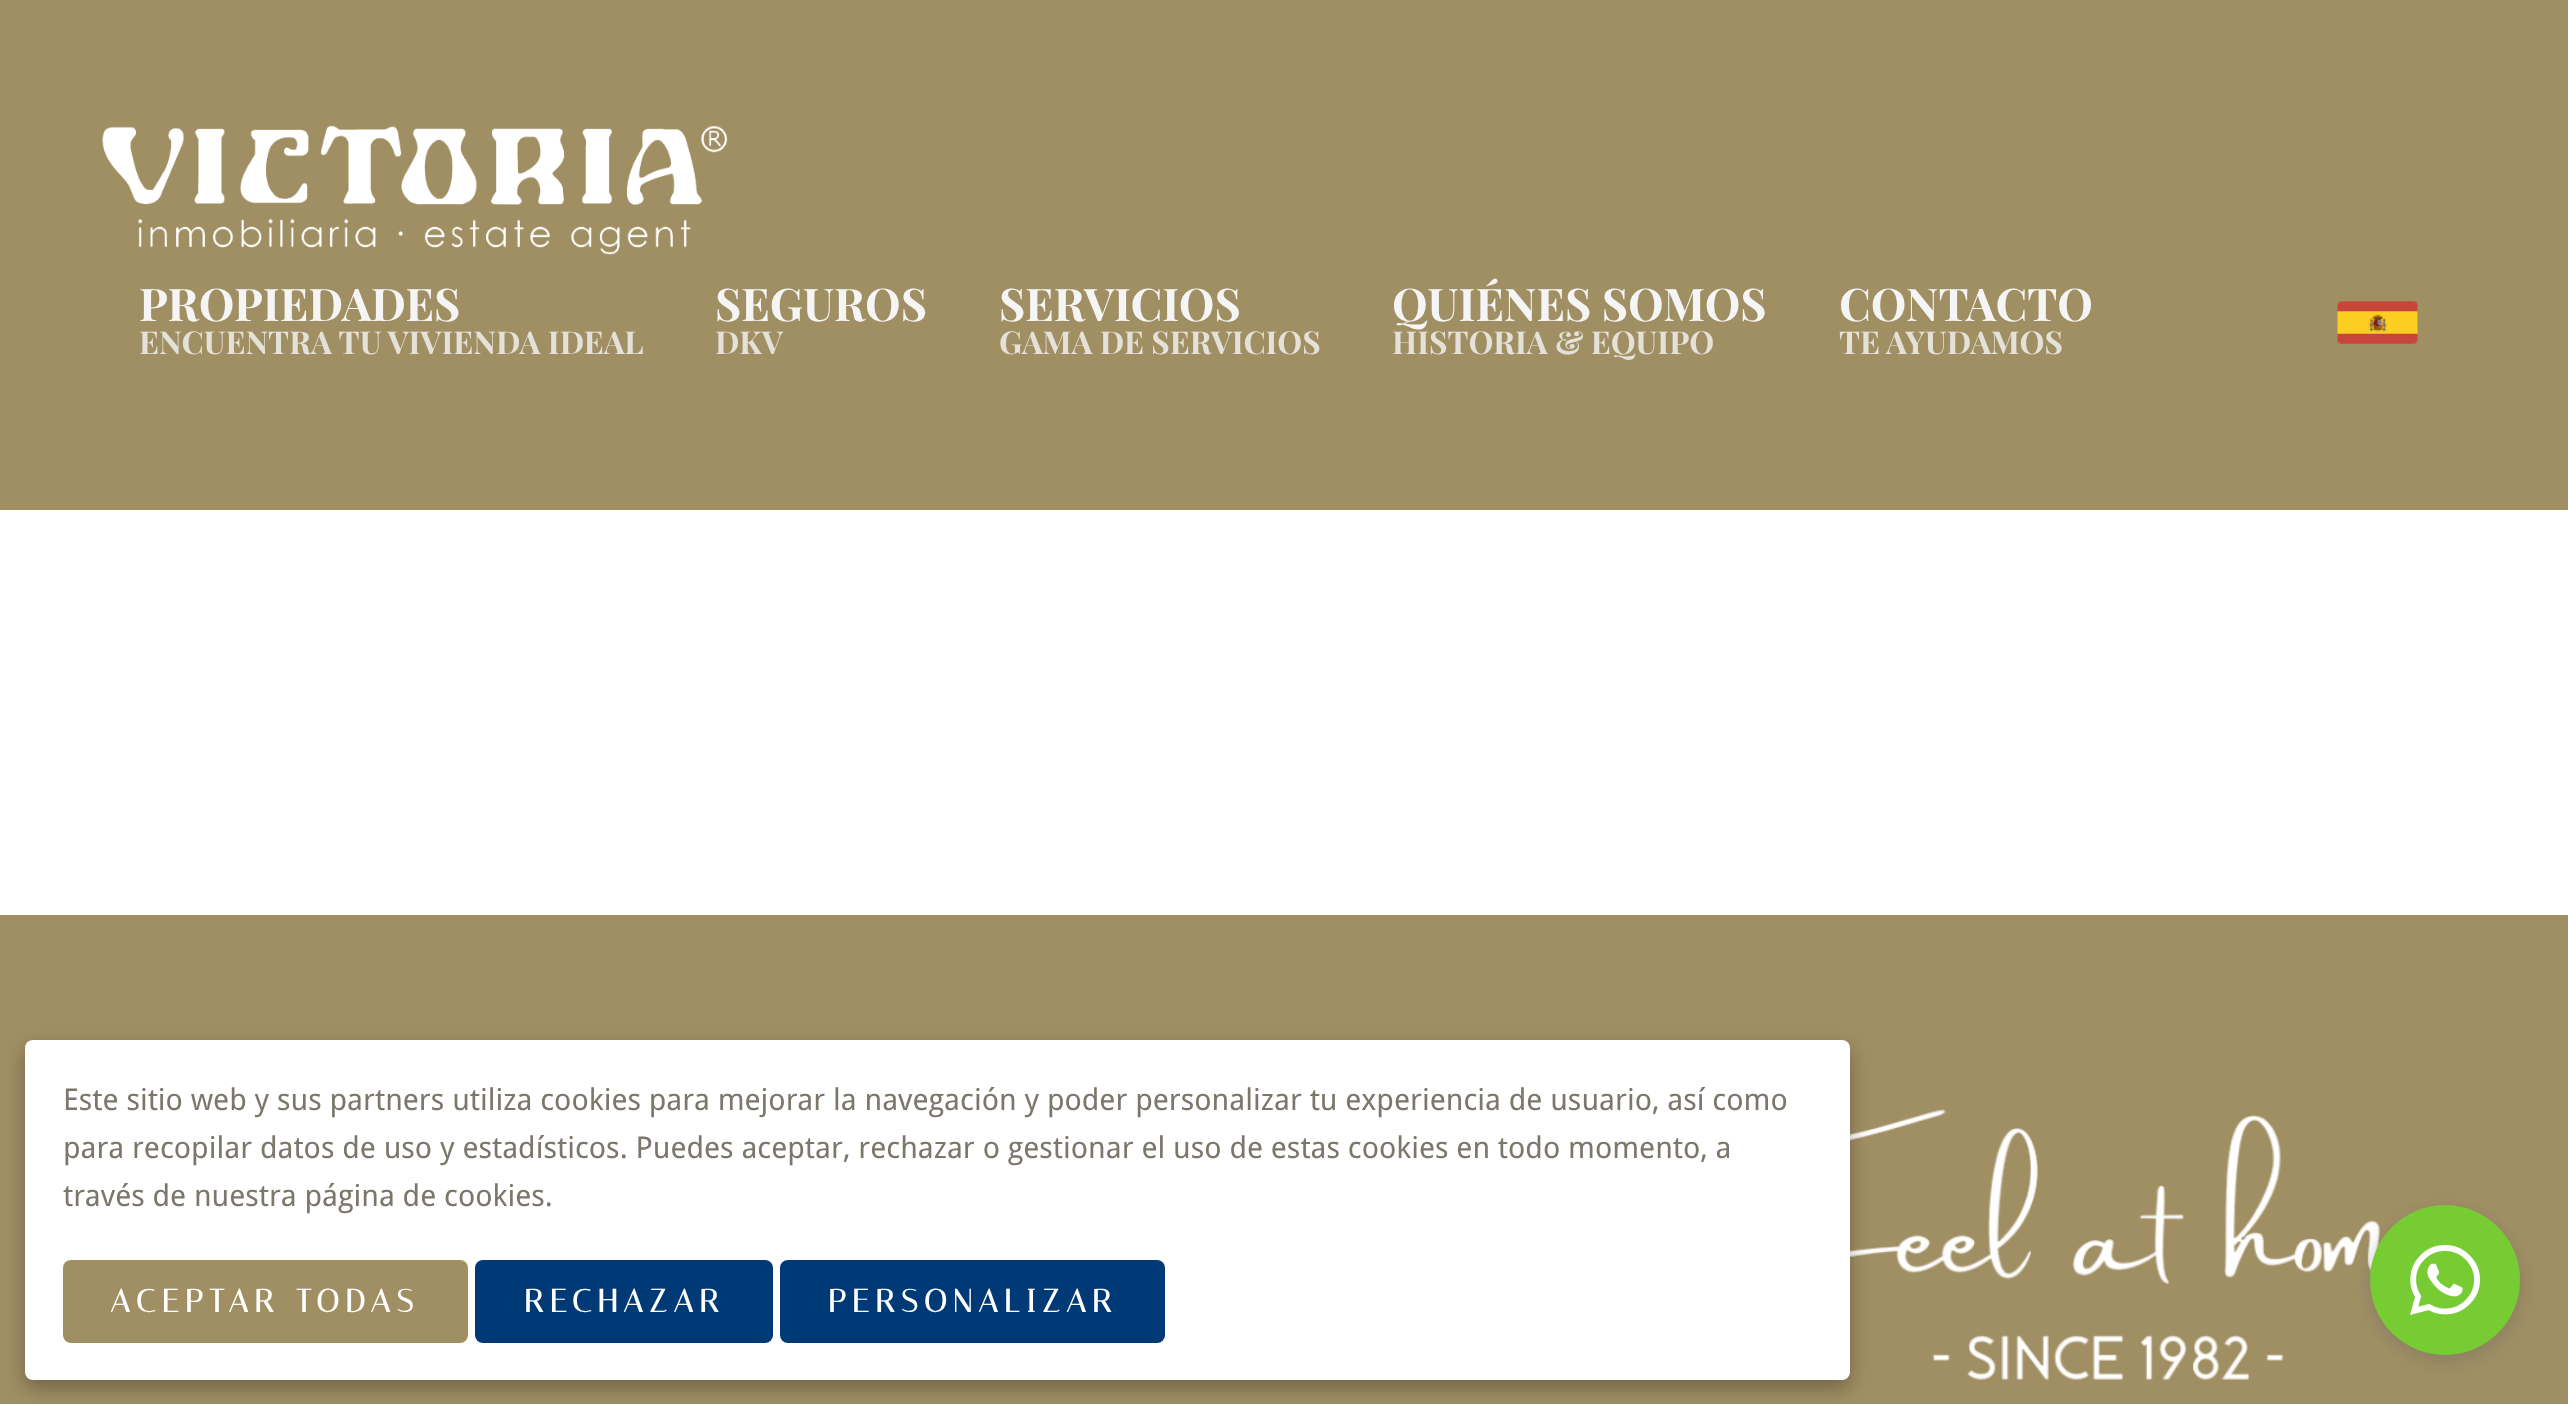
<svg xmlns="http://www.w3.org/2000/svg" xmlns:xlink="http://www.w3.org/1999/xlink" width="2568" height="1404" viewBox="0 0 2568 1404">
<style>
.cls-1{font:bold 45px Playfair Display;fill:#f5f5f5}
.cls-2{font:bold 31.5px Playfair Display;fill:#e4e1d8}
.cls-3{font:30px Droid Sans;fill:#7c776c}
.cls-4{font:bold 32px Italiana;letter-spacing:6.4px;fill:#ffffff}
</style>
<rect width="100%" height="100%" fill="#ffffff"/>
<rect fill="#a18f64" x="0" y="0" width="2568" height="510"/>
<image xlink:href="image0.png" x="102" y="125" width="626" height="130"/>
<image xlink:href="image1.png" x="2337" y="301" width="81" height="43"/>
<rect fill="#a18f64" x="0" y="915" width="2568" height="489"/>
<image xlink:href="image2.png" x="1850" y="1109" width="531" height="271"/>
<rect fill="#000000" fill-opacity="0.3" filter="blur(10px)" x="25" y="1048" width="1825" height="340" rx="8"/>
<rect fill="#ffffff" x="25" y="1040" width="1825" height="340" rx="8"/>
<rect fill="#a18f64" x="63" y="1260" width="405" height="83" rx="8"/>
<rect fill="#003a76" x="475" y="1260" width="298" height="83" rx="8"/>
<rect fill="#003a76" x="780" y="1260" width="385" height="83" rx="8"/>
<rect fill="#646464" fill-opacity="0.3" filter="blur(7.5px)" x="2368" y="1208" width="155" height="155" rx="77.5"/>
<circle fill="#77cc33" cx="2445" cy="1280" r="75"/>
<image xlink:href="image3.png" x="2410" y="1245" width="70" height="70"/>
<text class="cls-1" x="139" y="321">PROPIEDADES</text>
<text class="cls-2" x="139" y="354">ENCUENTRA TU VIVIENDA IDEAL</text>
<text class="cls-1" x="715" y="321">SEGUROS</text>
<text class="cls-2" x="715" y="354">DKV</text>
<text class="cls-1" x="999" y="321">SERVICIOS</text>
<text class="cls-2" x="999" y="354">GAMA DE SERVICIOS</text>
<text class="cls-1" x="1392" y="321">QUIÉNES SOMOS</text>
<text class="cls-2" x="1392" y="354">HISTORIA &amp; EQUIPO</text>
<text class="cls-1" x="1839" y="321">CONTACTO</text>
<text class="cls-2" x="1839" y="354">TE AYUDAMOS</text>
<text class="cls-3"><tspan x="63" y="1110">Este sitio web y sus partners utiliza cookies para mejorar la navegación y poder personalizar tu experiencia de usuario, así como</tspan><tspan x="63" y="1158">para recopilar datos de uso y estadísticos. Puedes aceptar, rechazar o gestionar el uso de estas cookies en todo momento, a</tspan><tspan x="63" y="1206">través de nuestra página de cookies.</tspan></text>
<text class="cls-4" x="110" y="1312">ACEPTAR TODAS</text>
<text class="cls-4" x="524" y="1312">RECHAZAR</text>
<text class="cls-4" x="828" y="1312">PERSONALIZAR</text>
</svg>
